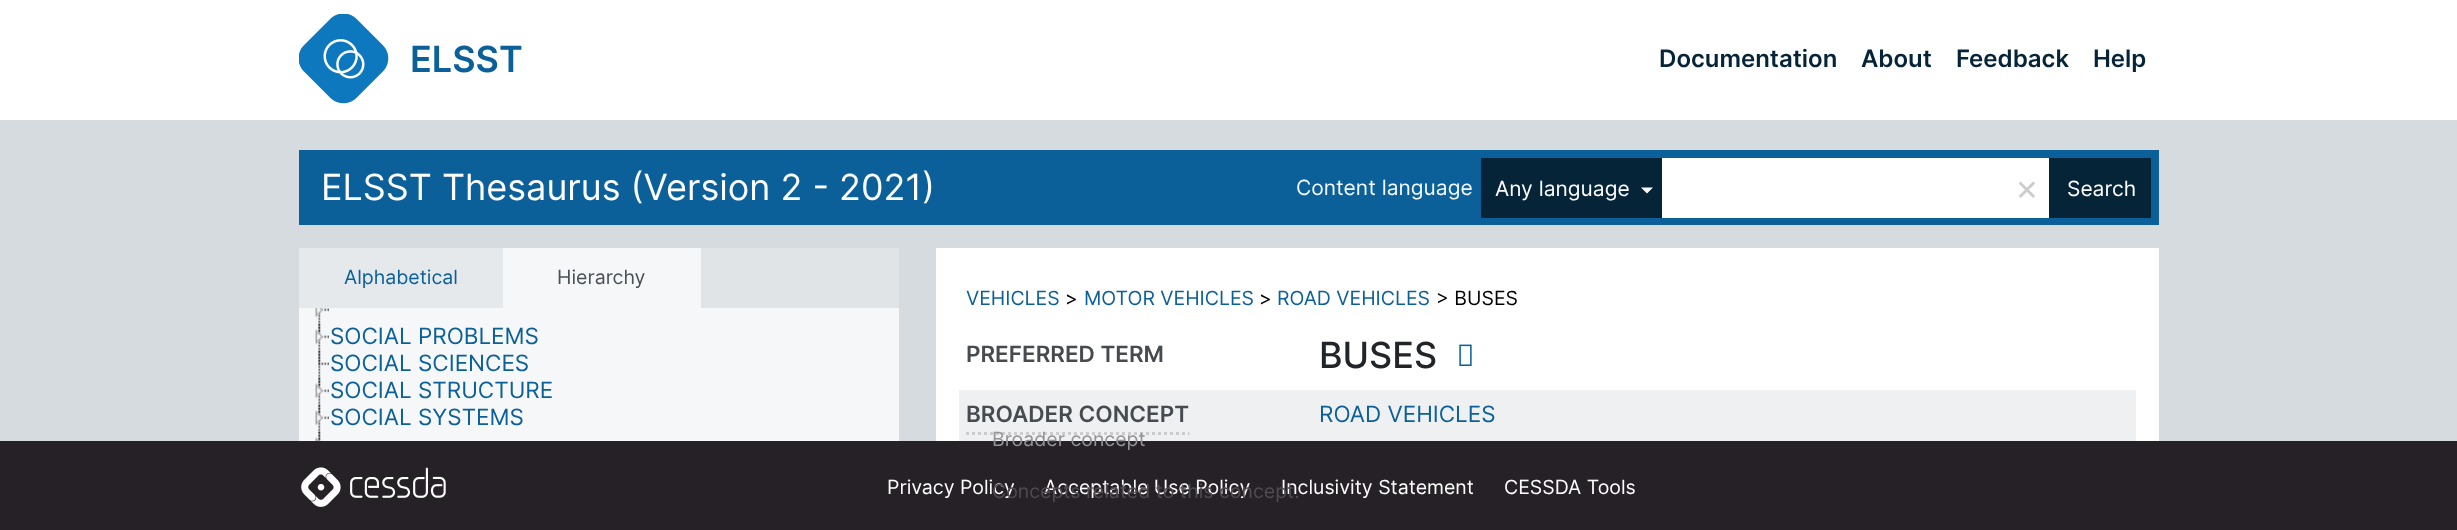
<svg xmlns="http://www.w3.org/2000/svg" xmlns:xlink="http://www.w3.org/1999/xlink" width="2457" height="530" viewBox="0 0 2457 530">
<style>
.cls-1{font:600 36px Inter;fill:#0b6099}
.cls-2{font:600 24px Inter;fill:#052438}
.cls-3{font:36px Inter;fill:#fdfdfe}
.cls-4{font:21px Inter;fill:#f3f7fa}
.cls-5{font:21px Inter;fill:#fdfdfe}
.cls-6{font:36px Inter;fill:#cccccc}
.cls-7{font:19.5px Inter;fill:#0b6099}
.cls-8{font:19.5px Inter;fill:#495057}
.cls-9{font:22.5px Inter;fill:#0b6099}
.cls-10{font:19.5px Inter;fill:#000000}
.cls-11{font:600 22.5px Inter;fill:#474b4f}
.cls-12{font:500 36px Inter;fill:#212529}
.cls-13{font:19.5px Inter;fill:#949295}
.cls-14{font:19.5px Inter;fill:#fdfdfe}
.cls-15{font:19.5px Inter;fill:#4f4b4f}
</style>
<rect width="100%" height="100%" fill="#d5dbde"/>
<rect fill="#ffffff" x="0" y="0" width="2457" height="120"/>
<image xlink:href="image0.png" x="299" y="14" width="90" height="90"/>
<rect fill="#0b6099" x="299" y="150" width="1860" height="75"/>
<rect fill="#052438" x="1481" y="158" width="181" height="60"/>
<path fill="#ffffff" d="M1641 187.5H1653L1647 193.5Z"/>
<rect fill="#ffffff" x="1662" y="158" width="387" height="60"/>
<rect fill="#052438" x="2049" y="158" width="102" height="60"/>
<rect fill="#e0e4e7" x="701" y="248" width="198" height="60"/>
<rect fill="#e6e9eb" x="299" y="248" width="204" height="60"/>
<rect fill="#f6f7f8" x="503" y="248" width="198" height="60"/>
<rect fill="#f6f7f8" x="299" y="308" width="600" height="133"/>
<image xlink:href="image1.png" x="318" y="308" width="3" height="16"/>
<image xlink:href="image2.png" x="315" y="308" width="14" height="10"/>
<image xlink:href="image3.png" x="318" y="323" width="3" height="28"/>
<image xlink:href="image4.png" x="315" y="323" width="14" height="22"/>
<image xlink:href="image3.png" x="318" y="350" width="3" height="28"/>
<image xlink:href="image5.png" x="318" y="350" width="11" height="16"/>
<image xlink:href="image6.png" x="318" y="377" width="3" height="28"/>
<image xlink:href="image7.png" x="315" y="377" width="14" height="22"/>
<image xlink:href="image3.png" x="318" y="404" width="3" height="28"/>
<image xlink:href="image4.png" x="315" y="404" width="14" height="22"/>
<image xlink:href="image8.png" x="318" y="431" width="3" height="10"/>
<image xlink:href="image9.png" x="315" y="431" width="6" height="10"/>
<rect fill="#ffffff" x="936" y="248" width="1223" height="193"/>
<image xlink:href="image10.png" x="1459" y="344" width="13" height="22"/>
<rect fill="#eff0f1" x="959" y="390" width="1177" height="51"/>
<path fill="none" stroke="#cccccc" stroke-width="3" stroke-dasharray="3 3" d="M966 433.5H1189.5"/>
<rect fill="#262126" x="0" y="441" width="2457" height="89"/>
<image xlink:href="image11.png" x="301" y="467" width="145" height="40"/>
<text class="cls-1" x="410" y="72">ELSST</text>
<text class="cls-2" x="1659" y="67">Documentation</text>
<text class="cls-2" x="1861" y="67">About</text>
<text class="cls-2" x="1956" y="67">Feedback</text>
<text class="cls-2" x="2093" y="67">Help</text>
<text class="cls-3" x="321" y="200">ELSST Thesaurus (Version 2 - 2021)</text>
<text class="cls-4" x="1296" y="195">Content language</text>
<text class="cls-5" x="1495" y="196">Any language</text>
<text class="cls-6" x="2015" y="200">×</text>
<text class="cls-5" x="2067" y="196">Search</text>
<text class="cls-7" x="344" y="284">Alphabetical</text>
<text class="cls-8" x="557" y="284">Hierarchy</text>
<text class="cls-9"><tspan x="330" y="344">SOCIAL PROBLEMS</tspan><tspan x="330" y="371">SOCIAL SCIENCES</tspan><tspan x="330" y="398">SOCIAL STRUCTURE</tspan><tspan x="330" y="425">SOCIAL SYSTEMS</tspan></text>
<text class="cls-7" x="966" y="305">VEHICLES</text>
<text class="cls-10" x="1065" y="305">&gt;</text>
<text class="cls-7" x="1084" y="305">MOTOR VEHICLES</text>
<text class="cls-10" x="1259" y="305">&gt;</text>
<text class="cls-7" x="1277" y="305">ROAD VEHICLES</text>
<text class="cls-10" x="1436" y="305">&gt; BUSES</text>
<text class="cls-11" x="966" y="362">PREFERRED TERM</text>
<text class="cls-12" x="1319" y="368">BUSES</text>
<text class="cls-11" x="966" y="422">BROADER CONCEPT</text>
<text class="cls-13" x="992" y="446">Broader concept</text>
<text class="cls-9" x="1319" y="422">ROAD VEHICLES</text>
<text class="cls-14" x="887" y="494">Privacy Policy</text>
<text class="cls-14" x="1044" y="494">Acceptable Use Policy</text>
<text class="cls-14" x="1281" y="494">Inclusivity Statement</text>
<text class="cls-15" x="992" y="498">Concepts related to this concept.</text>
<text class="cls-14" x="1504" y="494">CESSDA Tools</text>
</svg>
